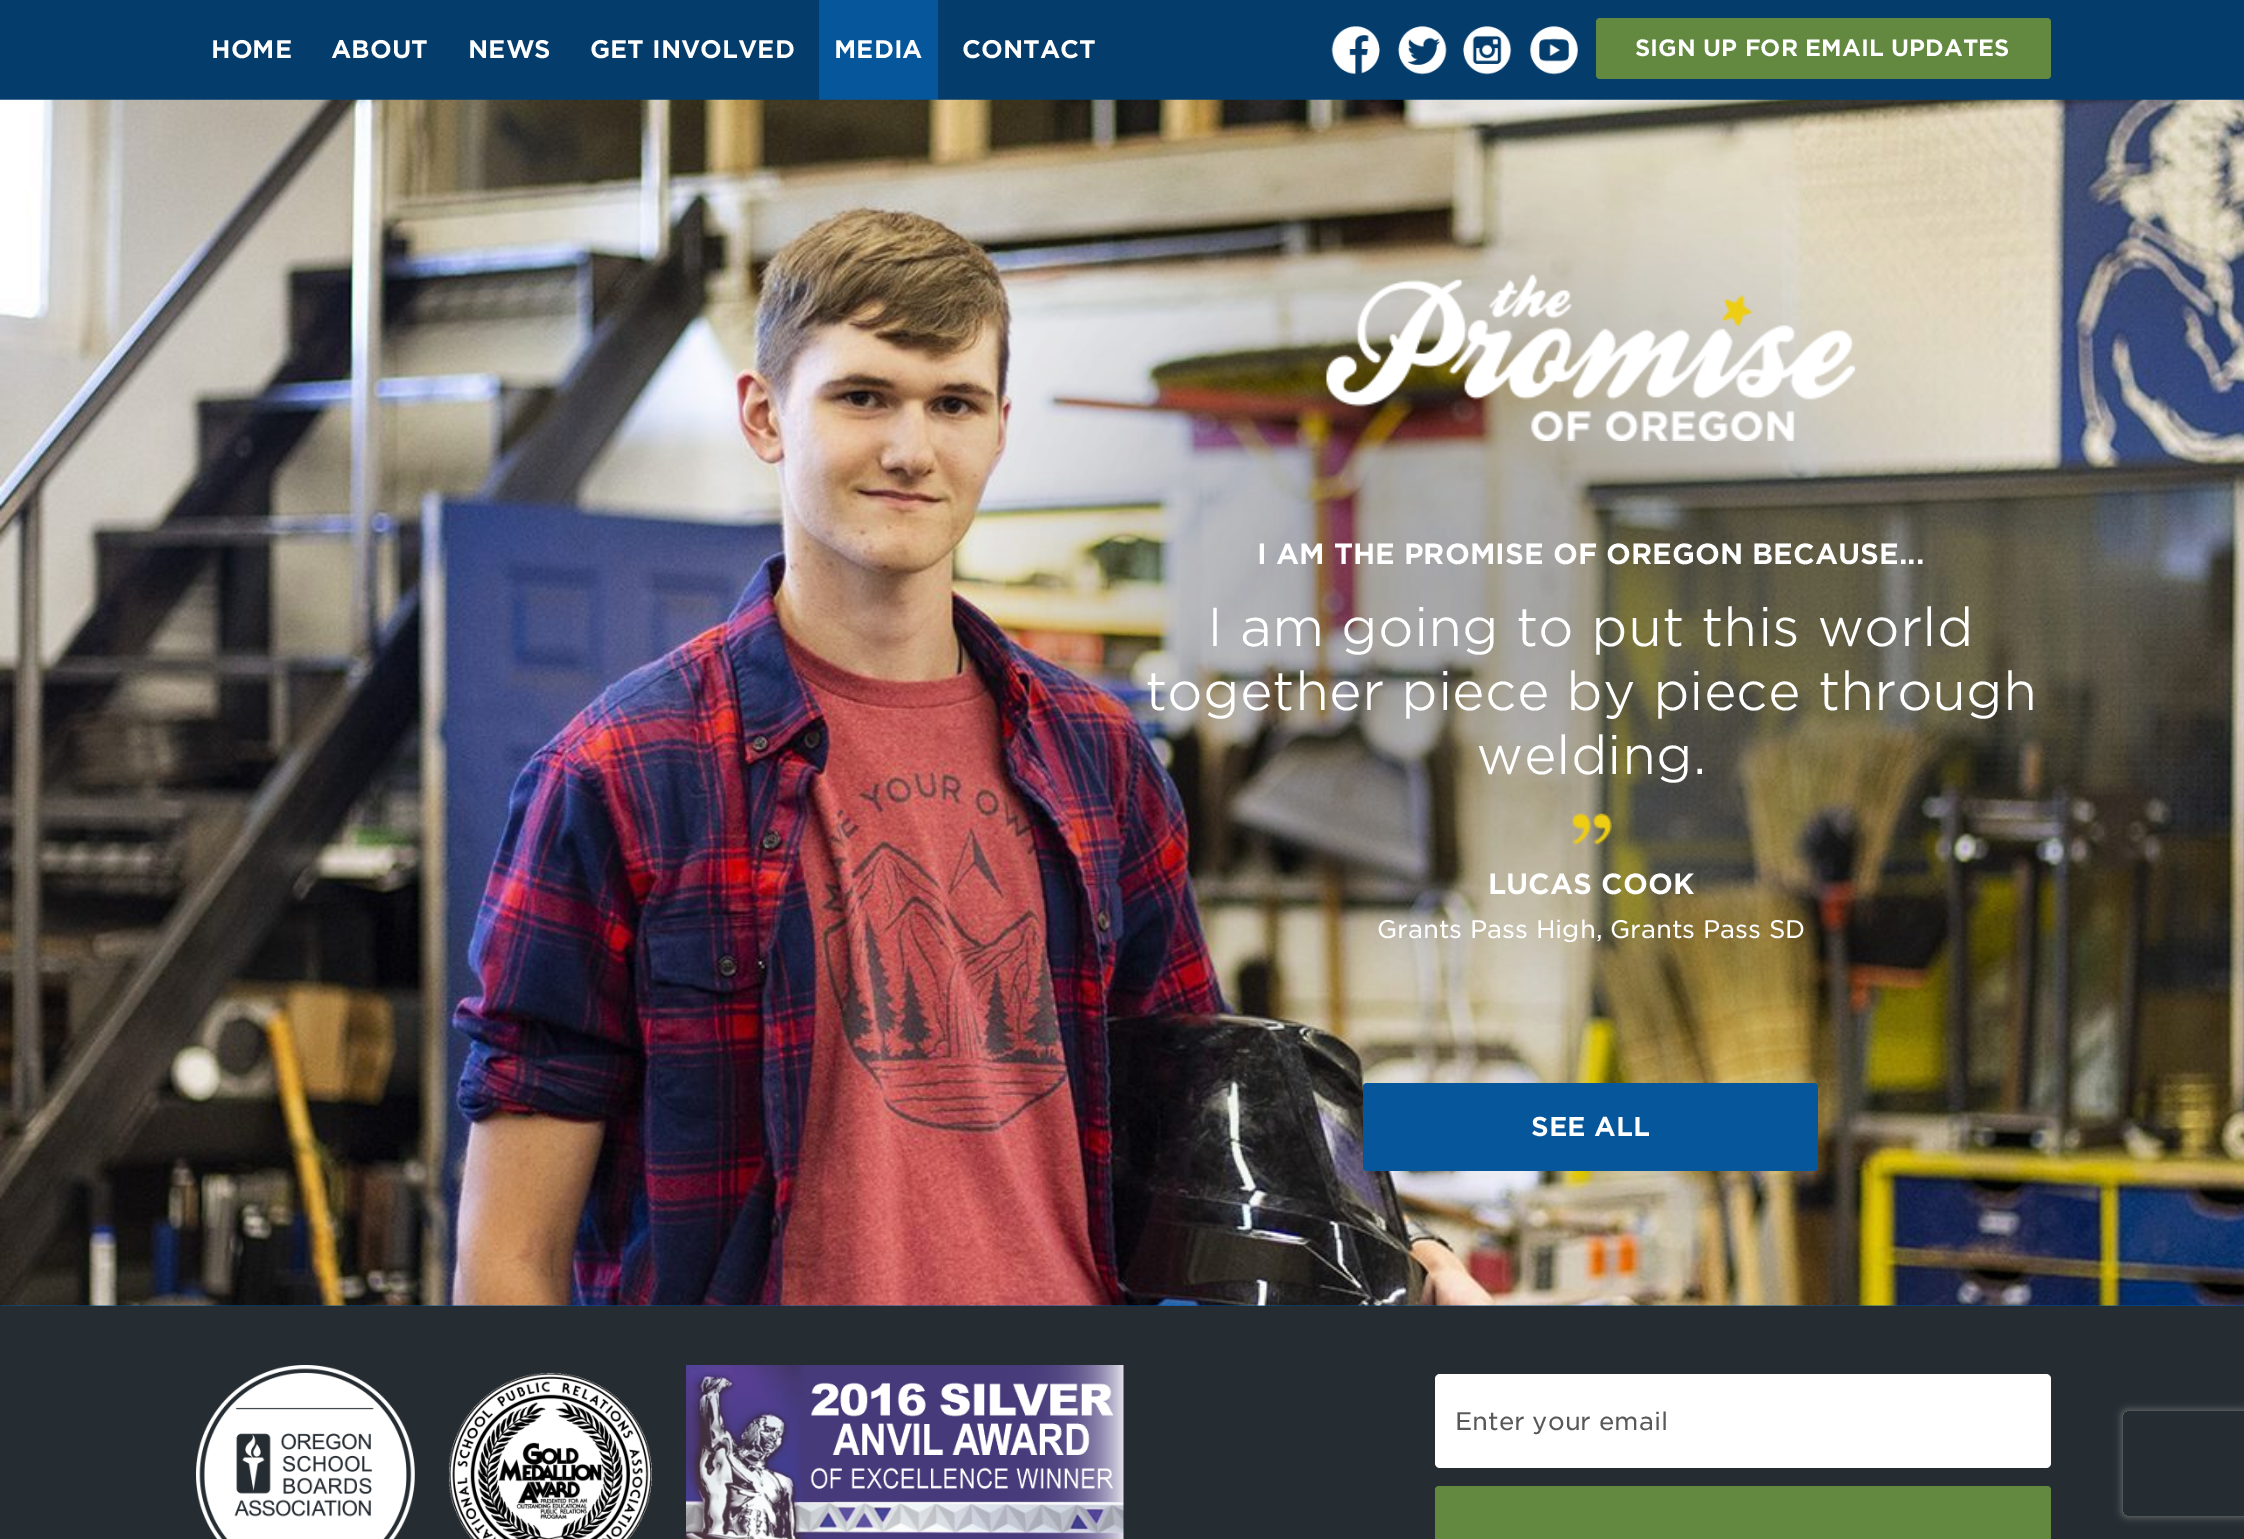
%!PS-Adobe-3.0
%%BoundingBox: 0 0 2244 1539
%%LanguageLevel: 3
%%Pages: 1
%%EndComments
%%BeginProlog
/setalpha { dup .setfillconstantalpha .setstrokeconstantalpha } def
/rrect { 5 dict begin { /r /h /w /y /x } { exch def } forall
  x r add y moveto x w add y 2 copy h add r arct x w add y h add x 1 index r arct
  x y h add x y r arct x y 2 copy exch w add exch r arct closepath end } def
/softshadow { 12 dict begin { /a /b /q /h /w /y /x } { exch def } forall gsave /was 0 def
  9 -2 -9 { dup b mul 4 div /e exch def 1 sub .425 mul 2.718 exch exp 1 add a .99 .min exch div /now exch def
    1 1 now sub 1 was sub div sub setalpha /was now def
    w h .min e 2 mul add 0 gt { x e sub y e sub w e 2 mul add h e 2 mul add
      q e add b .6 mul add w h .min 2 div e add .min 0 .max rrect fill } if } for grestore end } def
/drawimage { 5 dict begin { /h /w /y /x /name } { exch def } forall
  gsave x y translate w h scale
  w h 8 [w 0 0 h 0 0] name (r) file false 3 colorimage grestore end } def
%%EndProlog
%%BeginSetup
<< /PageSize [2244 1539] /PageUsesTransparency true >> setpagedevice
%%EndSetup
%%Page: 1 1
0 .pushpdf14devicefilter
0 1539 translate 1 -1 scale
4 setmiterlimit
0.016 0.235 0.424 setrgbcolor
0 0 2244 1539 rectfill
0.024 0.337 0.608 setrgbcolor
819 0 119 100 rectfill
(images/1.raw) 1331 26 49 49 drawimage
(images/2.raw) 1398 26 49 49 drawimage
(images/3.raw) 1463 26 49 49 drawimage
(images/4.raw) 1530 26 48 49 drawimage
0.388 0.537 0.255 setrgbcolor
1596 18 455 61 4 rrect fill
0.024 0.337 0.608 setrgbcolor
0 1305 2244 1 rectfill
(images/5.raw) 0 99 2244 1207 drawimage
(images/6.raw) 801 100 1366 1110 drawimage
(images/7.raw) 1326 274 529 167 drawimage
(images/8.raw) 1571 813 41 33 drawimage
1363 1083 455 88 4 rrect fill
0.145 0.173 0.196 setrgbcolor
0 1306 2244 233 rectfill
(images/9.raw) 196 1365 219 174 drawimage
(images/10.raw) 448 1372 204 167 drawimage
(images/11.raw) 686 1365 438 174 drawimage
1 setgray
1435 1374 616 94 5 rrect fill
0.388 0.537 0.255 setrgbcolor
1435 1486 616 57 4 rrect fill
gsave
newpath 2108 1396 moveto 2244 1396 lineto 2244 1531 lineto 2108 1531 lineto closepath 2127 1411 moveto 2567 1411 lineto 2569 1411 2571 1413 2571 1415 curveto 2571 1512 lineto 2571 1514 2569 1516 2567 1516 curveto 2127 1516 lineto 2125 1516 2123 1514 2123 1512 curveto 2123 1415 lineto 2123 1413 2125 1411 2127 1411 curveto closepath eoclip newpath
0.502 setgray
2123 1411 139 105 4 4.5 1 softshadow
grestore
/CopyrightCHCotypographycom-Regular [24.5 0 0 -24.5 0 0] selectfont
1 setgray
211 58 moveto (HOME) show
331 58 moveto (ABOUT) show
468 58 moveto (NEWS) show
590 58 moveto (GET INVOLVED) show
834 58 moveto (MEDIA) show
962 58 moveto (CONTACT) show
/CopyrightCHCotypographycom-Regular [22.75 0 0 -22.75 0 0] selectfont
1635 56 moveto (SIGN UP FOR EMAIL UPDATES) show
/CopyrightCHCotypographycom-Regular [28 0 0 -28 0 0] selectfont
1257 564 moveto (I AM THE PROMISE OF OREGON BECAUSE...) show
/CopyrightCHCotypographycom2-Light [52.5 0 0 -52.5 0 0] selectfont
1207 646 moveto (I am going to put this world) show
1145 710 moveto (together piece by piece through) show
1476 774 moveto (welding.) show
/CopyrightCHCotypographycom-Regular [28 0 0 -28 0 0] selectfont
1488 894 moveto (LUCAS COOK) show
/CopyrightCHCotypographycom-Light [24.5 0 0 -24.5 0 0] selectfont
1377 938 moveto (Grants Pass High, Grants Pass SD) show
/CopyrightCHCotypographycom-Regular [26.25 0 0 -26.25 0 0] selectfont
1531 1136 moveto (SEE ALL) show
/CopyrightCHCotypographycom-Light [24.5 0 0 -24.5 0 0] selectfont
0.345 setgray
1455 1430 moveto (Enter your email) show
.poppdf14devicefilter showpage
%%EOF
